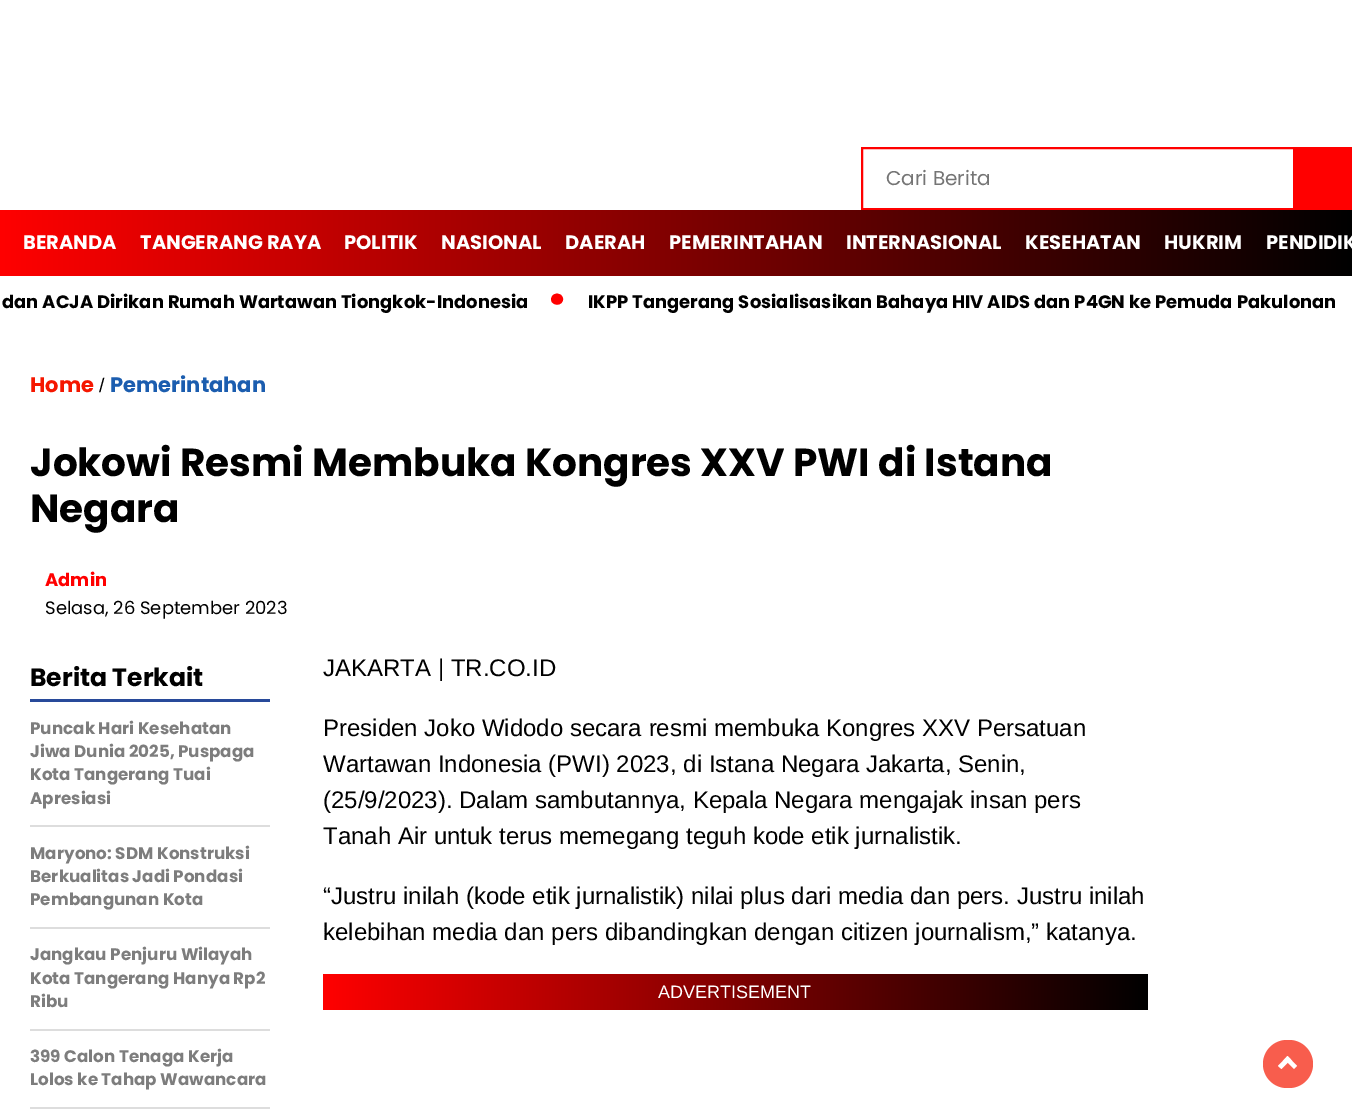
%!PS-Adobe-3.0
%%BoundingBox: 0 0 1352 1109
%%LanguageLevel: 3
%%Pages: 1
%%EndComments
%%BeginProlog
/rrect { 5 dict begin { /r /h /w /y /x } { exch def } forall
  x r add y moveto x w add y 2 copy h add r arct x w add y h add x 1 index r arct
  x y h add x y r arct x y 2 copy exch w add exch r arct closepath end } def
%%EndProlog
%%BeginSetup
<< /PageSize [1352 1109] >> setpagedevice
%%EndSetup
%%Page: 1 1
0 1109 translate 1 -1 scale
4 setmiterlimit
1 setgray
0 0 1352 1109 rectfill
1 0 0 setrgbcolor
2 setlinewidth
862 148 432 61 rectstroke
1295 147 57 63 rectfill
gsave newpath 0 210 moveto 1352 210 lineto 1352 276 lineto 0 276 lineto closepath clip newpath
<< /ShadingType 2 /ColorSpace /DeviceRGB /Coords [0 243 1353 243] /Extend [true true] /Function << /FunctionType 2 /Domain [0 1] /C0 [1 0 0] /C1 [0 0 0] /N 1 >> >> shfill grestore
0.157 0.29 0.604 setrgbcolor
30 699 240 3 rectfill
0.867 setgray
30 825 240 2 rectfill
30 927 240 2 rectfill
30 1029 240 2 rectfill
30 1107 240 2 rectfill
gsave newpath 323 974 moveto 1148 974 lineto 1148 1010 lineto 323 1010 lineto closepath clip newpath
<< /ShadingType 2 /ColorSpace /DeviceRGB /Coords [323 992 1148 992] /Extend [true true] /Function << /FunctionType 2 /Domain [0 1] /C0 [1 0 0] /C1 [0 0 0] /N 1 >> >> shfill grestore
0.973 0.365 0.302 setrgbcolor
1263 1040 50 48 24 rrect fill
1 setgray
newpath 1281.5 1069 moveto 1278 1066 lineto 1287.5 1056 lineto 1291 1059.5 lineto closepath fill
newpath 1294 1069 moveto 1284.5 1059.5 lineto 1287.5 1056 lineto 1297 1066 lineto closepath fill
/Poppins-Regular [20 0 0 -20 0 0] selectfont
0.459 setgray
886 185 moveto (Cari Berita) show
/Poppins-Bold [19.5 0 0 -19.5 0 0] selectfont
1 setgray
23 249 moveto (BERANDA) show
140 249 moveto (TANGERANG RAYA) show
344 249 moveto (POLITIK) show
441 249 moveto (NASIONAL) show
565 249 moveto (DAERAH) show
669 249 moveto (PEMERINTAHAN) show
846 249 moveto (INTERNASIONAL) show
1025 249 moveto (KESEHATAN) show
1164 249 moveto (HUKRIM) show
1266 249 moveto (PENDIDIK) show
/Poppins-Bold [18 0 0 -18 0 0] selectfont
0 setgray
2 308 moveto (dan ACJA Dirikan Rumah Wartawan Tiongkok-Indonesia) show
/Poppins-Bold [60 0 0 -60 0 0] selectfont
1 0 0 setrgbcolor
548 318 moveto (·) show
/Poppins-Bold [18 0 0 -18 0 0] selectfont
0 setgray
588 308 moveto (IKPP Tangerang Sosialisasikan Bahaya HIV AIDS dan P4GN ke Pemuda Pakulonan) show
/Poppins-Bold [21 0 0 -21 0 0] selectfont
0.961 0.09 0 setrgbcolor
30 392 moveto (Home) show
/LiberationSans-Regular [19.5 0 0 -19.5 0 0] selectfont
0 setgray
99 392 moveto (/) show
/Poppins-Bold [21 0 0 -21 0 0] selectfont
0.106 0.365 0.686 setrgbcolor
110 392 moveto (Pemerintahan) show
/Poppins-Bold [39 0 0 -39 0 0] selectfont
0 setgray
30 476 moveto (Jokowi Resmi Membuka Kongres XXV PWI di Istana) show
30 522 moveto (Negara) show
/Poppins-Bold [18 0 0 -18 0 0] selectfont
1 0 0 setrgbcolor
45 586 moveto (Admin) show
/Poppins-Regular [18 0 0 -18 0 0] selectfont
0 setgray
45 614 moveto (Selasa, 26 September 2023) show
/Poppins-Bold [25 0 0 -25 0 0] selectfont
30 686 moveto (Berita Terkait) show
/Poppins-Bold [16.75 0 0 -16.75 0 0] selectfont
0.49 setgray
30 734 moveto (Puncak Hari Kesehatan) show
30 757 moveto (Jiwa Dunia 2025, Puspaga) show
30 780 moveto (Kota Tangerang Tuai) show
30 804 moveto (Apresiasi) show
30 859 moveto (Maryono: SDM Konstruksi) show
30 882 moveto (Berkualitas Jadi Pondasi) show
30 905 moveto (Pembangunan Kota) show
30 960 moveto (Jangkau Penjuru Wilayah) show
30 984 moveto (Kota Tangerang Hanya Rp2) show
30 1007 moveto (Ribu) show
30 1062 moveto (399 Calon Tenaga Kerja) show
30 1085 moveto (Lolos ke Tahap Wawancara) show
/LiberationSans-Regular [24 0 0 -24 0 0] selectfont
0 setgray
323 676 moveto (JAKARTA | TR.CO.ID) show
323 736 moveto (Presiden Joko Widodo secara resmi membuka Kongres XXV Persatuan) show
323 772 moveto (Wartawan Indonesia \(PWI\) 2023, di Istana Negara Jakarta, Senin,) show
323 808 moveto (\(25/9/2023\). Dalam sambutannya, Kepala Negara mengajak insan pers) show
323 844 moveto (Tanah Air untuk terus memegang teguh kode etik jurnalistik.) show
323 904 moveto (“Justru inilah \(kode etik jurnalistik\) nilai plus dari media dan pers. Justru inilah) show
323 940 moveto (kelebihan media dan pers dibandingkan dengan citizen journalism,” katanya.) show
/LiberationSans-Regular [18 0 0 -18 0 0] selectfont
1 setgray
658 998 moveto (ADVERTISEMENT) show
showpage
%%EOF
